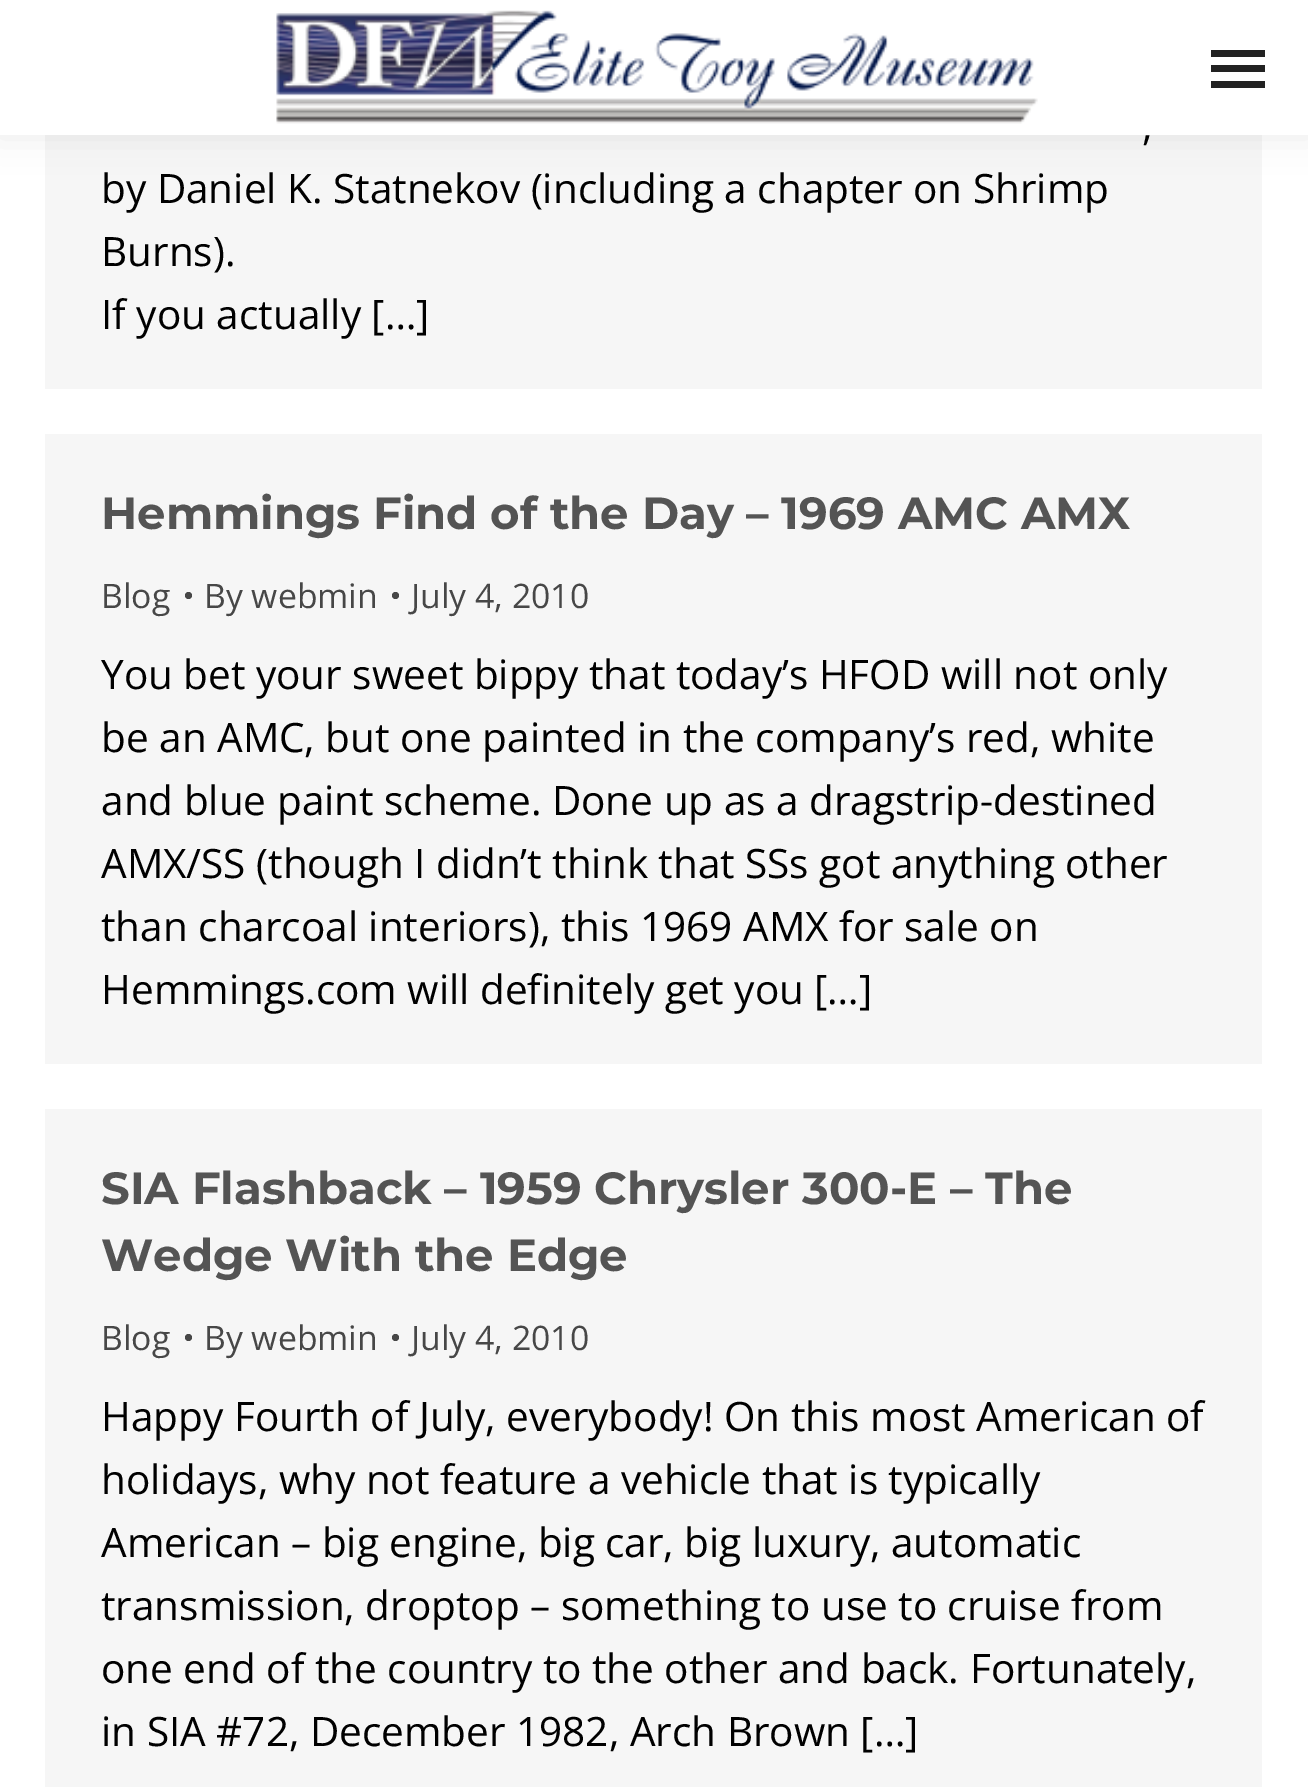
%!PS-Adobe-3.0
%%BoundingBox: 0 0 1308 1787
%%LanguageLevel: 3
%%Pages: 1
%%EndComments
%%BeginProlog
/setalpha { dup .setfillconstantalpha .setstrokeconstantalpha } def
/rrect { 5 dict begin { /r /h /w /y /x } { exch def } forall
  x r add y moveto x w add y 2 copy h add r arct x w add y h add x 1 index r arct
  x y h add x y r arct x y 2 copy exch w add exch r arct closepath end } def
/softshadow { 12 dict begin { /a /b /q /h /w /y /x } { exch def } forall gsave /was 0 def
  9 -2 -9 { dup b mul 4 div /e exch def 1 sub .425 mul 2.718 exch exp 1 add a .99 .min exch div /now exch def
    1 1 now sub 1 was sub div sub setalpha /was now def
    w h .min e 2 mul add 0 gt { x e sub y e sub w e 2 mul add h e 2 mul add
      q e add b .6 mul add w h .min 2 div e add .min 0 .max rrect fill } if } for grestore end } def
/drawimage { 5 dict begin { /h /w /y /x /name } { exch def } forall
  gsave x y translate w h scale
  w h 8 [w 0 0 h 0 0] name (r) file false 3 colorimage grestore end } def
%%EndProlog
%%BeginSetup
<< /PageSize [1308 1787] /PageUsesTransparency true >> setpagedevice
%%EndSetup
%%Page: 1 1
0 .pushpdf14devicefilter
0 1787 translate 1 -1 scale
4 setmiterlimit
1 setgray
0 0 1308 1787 rectfill
0.965 setgray
45 135 1217 254 rectfill
0 setgray
-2 -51 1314 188 0 17 0.07 softshadow
1 setgray
0 0 1308 135 rectfill
(images/1.raw) 276 10 762 114 drawimage
0.133 setgray
1211 50 54 7 rectfill
1211 65 54 7 rectfill
1211 81 54 7 rectfill
0.965 setgray
45 434 1217 630 rectfill
0.278 setgray
newpath 188.5 595.5 3.5 0 360 arc closepath fill
newpath 395.5 595.5 3.5 0 360 arc closepath fill
0.965 setgray
45 1109 1217 678 rectfill
0.278 setgray
newpath 188.5 1337.5 3.5 0 360 arc closepath fill
newpath 395.5 1337.5 3.5 0 360 arc closepath fill
/OpenSans-Regular [40.5 0 0 -40.5 0 0] selectfont
0 setgray
1142 140 moveto (,) show
101 203 moveto (by Daniel K. Statnekov \(including a chapter on Shrimp) show
101 266 moveto (Burns\).) show
101 329 moveto (If you actually […]) show
/Montserrat-Bold [45 0 0 -45 0 0] selectfont
0.329 setgray
101 529 moveto (Hemmings Find of the Day – 1969 AMC AMX) show
/OpenSans-Regular [33.75 0 0 -33.75 0 0] selectfont
0.278 setgray
101 608 moveto (Blog) show
204 608 moveto (By webmin) show
411 608 moveto (July 4, 2010) show
/OpenSans-Regular [40.5 0 0 -40.5 0 0] selectfont
0 setgray
101 689 moveto (You bet your sweet bippy that today’s HFOD will not only) show
101 752 moveto (be an AMC, but one painted in the company’s red, white) show
101 815 moveto (and blue paint scheme. Done up as a dragstrip-destined) show
101 878 moveto (AMX/SS \(though I didn’t think that SSs got anything other) show
101 941 moveto (than charcoal interiors\), this 1969 AMX for sale on) show
101 1004 moveto (Hemmings.com will definitely get you […]) show
/Montserrat-Bold [45 0 0 -45 0 0] selectfont
0.329 setgray
101 1204 moveto (SIA Flashback – 1959 Chrysler 300-E – The) show
101 1271 moveto (Wedge With the Edge) show
/OpenSans-Regular [33.75 0 0 -33.75 0 0] selectfont
0.278 setgray
101 1350 moveto (Blog) show
204 1350 moveto (By webmin) show
411 1350 moveto (July 4, 2010) show
/OpenSans-Regular [40.5 0 0 -40.5 0 0] selectfont
0 setgray
101 1431 moveto (Happy Fourth of July, everybody! On this most American of) show
101 1494 moveto (holidays, why not feature a vehicle that is typically) show
101 1557 moveto (American – big engine, big car, big luxury, automatic) show
101 1620 moveto (transmission, droptop – something to use to cruise from) show
101 1683 moveto (one end of the country to the other and back. Fortunately,) show
101 1746 moveto (in SIA #72, December 1982, Arch Brown […]) show
.poppdf14devicefilter showpage
%%EOF
